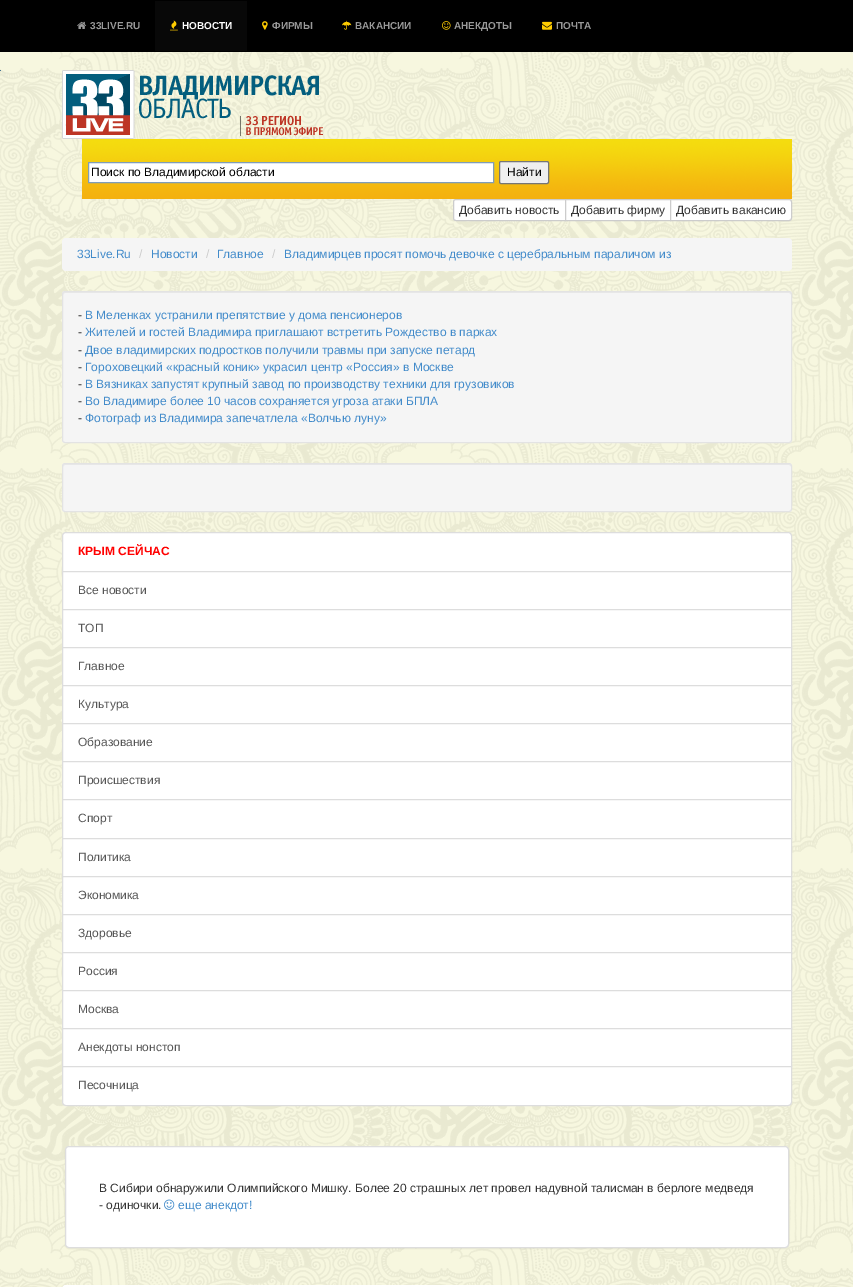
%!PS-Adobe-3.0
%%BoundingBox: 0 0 853 1287
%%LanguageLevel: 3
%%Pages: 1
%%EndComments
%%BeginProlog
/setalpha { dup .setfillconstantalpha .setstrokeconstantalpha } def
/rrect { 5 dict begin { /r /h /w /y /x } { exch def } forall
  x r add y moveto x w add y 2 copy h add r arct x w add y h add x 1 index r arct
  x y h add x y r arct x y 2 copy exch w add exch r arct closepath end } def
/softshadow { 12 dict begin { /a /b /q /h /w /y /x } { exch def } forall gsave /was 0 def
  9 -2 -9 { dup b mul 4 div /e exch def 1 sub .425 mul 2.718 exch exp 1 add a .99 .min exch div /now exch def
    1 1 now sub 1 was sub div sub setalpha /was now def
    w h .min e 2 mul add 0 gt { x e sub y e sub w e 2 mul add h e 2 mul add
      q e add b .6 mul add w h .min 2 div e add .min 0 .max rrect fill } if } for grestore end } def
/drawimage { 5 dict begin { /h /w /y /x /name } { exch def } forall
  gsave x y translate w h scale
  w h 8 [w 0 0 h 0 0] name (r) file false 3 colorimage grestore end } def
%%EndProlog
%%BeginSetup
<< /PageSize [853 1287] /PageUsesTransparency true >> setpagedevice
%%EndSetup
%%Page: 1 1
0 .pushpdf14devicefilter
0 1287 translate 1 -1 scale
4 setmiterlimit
1 setgray
0 0 853 1287 rectfill
(images/1.raw) 0 52 853 1235 drawimage
0 setgray
0 0 853 52 rectfill
(images/2.raw) 77 21 10 8 drawimage
0.031 setgray
155 1 92 50 rectfill
(images/3.raw) 170 20 8 11 drawimage
(images/4.raw) 262 21 6 9 drawimage
(images/5.raw) 342 20 10 10 drawimage
(images/6.raw) 442 21 9 9 drawimage
(images/7.raw) 542 21 10 9 drawimage
0.278 0.455 0.561 setrgbcolor
0 70 1 1 rectfill
(images/8.raw) 62 70 261 69 drawimage
(images/9.raw) 82 139 710 60 drawimage
1 setgray
newpath 88.5 162.5 moveto 493.5 162.5 lineto 493.5 182.5 lineto 88.5 182.5 lineto closepath gsave fill grestore
0.498 0.616 0.725 setrgbcolor
stroke
0.937 setgray
499.5 161.5 49 22 1.5 rrect gsave fill grestore
0.463 setgray
stroke
1 setgray
newpath 456 199.5 moveto 565.5 199.5 lineto 565.5 220.5 lineto 456 220.5 lineto 454.5 220.5 453.5 219.5 453.5 218 curveto 453.5 202 lineto 453.5 200.5 454.5 199.5 456 199.5 curveto closepath gsave fill grestore
0.8 setgray
stroke
1 setgray
newpath 565.5 199.5 moveto 670.5 199.5 lineto 670.5 220.5 lineto 565.5 220.5 lineto closepath gsave fill grestore
0.8 setgray
stroke
1 setgray
newpath 670.5 199.5 moveto 789 199.5 lineto 790.5 199.5 791.5 200.5 791.5 202 curveto 791.5 218 lineto 791.5 219.5 790.5 220.5 789 220.5 curveto 670.5 220.5 lineto closepath gsave fill grestore
0.8 setgray
stroke
0.961 setgray
62 238 730 33 4 rrect fill
62 291 730 152 3 rrect fill
0.914 setgray
newpath 65 293 moveto 789 293 lineto 790 293 791 294 791 295 curveto 791 294 791 292 789 292 curveto 65 292 lineto 63 292 63 294 63 295 curveto 63 294 64 293 65 293 curveto closepath fill
0.89 setgray
62.5 291.5 729 151 2.5 rrect stroke
0.961 setgray
62 463 730 49 3 rrect fill
0.914 setgray
newpath 65 465 moveto 789 465 lineto 790 465 791 466 791 467 curveto 791 466 791 464 789 464 curveto 65 464 lineto 63 464 63 466 63 467 curveto 63 466 64 465 65 465 curveto closepath fill
0.89 setgray
62.5 463.5 729 48 2.5 rrect stroke
1 setgray
newpath 66 532.5 moveto 788 532.5 lineto 790 532.5 791.5 534 791.5 536 curveto 791.5 571.5 lineto 62.5 571.5 lineto 62.5 536 lineto 62.5 534 64 532.5 66 532.5 curveto closepath gsave fill grestore
0.867 setgray
stroke
1 setgray
newpath 62.5 571.5 moveto 791.5 571.5 lineto 791.5 609.5 lineto 62.5 609.5 lineto closepath gsave fill grestore
0.867 setgray
stroke
1 setgray
newpath 62.5 609.5 moveto 791.5 609.5 lineto 791.5 647.5 lineto 62.5 647.5 lineto closepath gsave fill grestore
0.867 setgray
stroke
1 setgray
newpath 62.5 647.5 moveto 791.5 647.5 lineto 791.5 685.5 lineto 62.5 685.5 lineto closepath gsave fill grestore
0.867 setgray
stroke
1 setgray
newpath 62.5 685.5 moveto 791.5 685.5 lineto 791.5 723.5 lineto 62.5 723.5 lineto closepath gsave fill grestore
0.867 setgray
stroke
1 setgray
newpath 62.5 723.5 moveto 791.5 723.5 lineto 791.5 761.5 lineto 62.5 761.5 lineto closepath gsave fill grestore
0.867 setgray
stroke
1 setgray
newpath 62.5 761.5 moveto 791.5 761.5 lineto 791.5 799.5 lineto 62.5 799.5 lineto closepath gsave fill grestore
0.867 setgray
stroke
1 setgray
newpath 62.5 799.5 moveto 791.5 799.5 lineto 791.5 838.5 lineto 62.5 838.5 lineto closepath gsave fill grestore
0.867 setgray
stroke
1 setgray
newpath 62.5 838.5 moveto 791.5 838.5 lineto 791.5 876.5 lineto 62.5 876.5 lineto closepath gsave fill grestore
0.867 setgray
stroke
1 setgray
newpath 62.5 876.5 moveto 791.5 876.5 lineto 791.5 914.5 lineto 62.5 914.5 lineto closepath gsave fill grestore
0.867 setgray
stroke
1 setgray
newpath 62.5 914.5 moveto 791.5 914.5 lineto 791.5 952.5 lineto 62.5 952.5 lineto closepath gsave fill grestore
0.867 setgray
stroke
1 setgray
newpath 62.5 952.5 moveto 791.5 952.5 lineto 791.5 990.5 lineto 62.5 990.5 lineto closepath gsave fill grestore
0.867 setgray
stroke
1 setgray
newpath 62.5 990.5 moveto 791.5 990.5 lineto 791.5 1028.5 lineto 62.5 1028.5 lineto closepath gsave fill grestore
0.867 setgray
stroke
1 setgray
newpath 62.5 1028.5 moveto 791.5 1028.5 lineto 791.5 1066.5 lineto 62.5 1066.5 lineto closepath gsave fill grestore
0.867 setgray
stroke
1 setgray
newpath 62.5 1066.5 moveto 791.5 1066.5 lineto 791.5 1102 lineto 791.5 1104 790 1105.5 788 1105.5 curveto 66 1105.5 lineto 64 1105.5 62.5 1104 62.5 1102 curveto closepath gsave fill grestore
0.867 setgray
stroke
0 setgray
65 1147 724 102 4 0.5 0.05 softshadow
1 setgray
65.5 1146.5 723 101 3.5 rrect gsave fill grestore
0.867 setgray
stroke
(images/10.raw) 164 1199 11 11 drawimage
1 setgray
62 1285 730 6 4 rrect fill
/LiberationSans-Bold [10 0 0 -10 0 0] selectfont
0.6 setgray
90 29 moveto (33LIVE.RU) show
1 setgray
182 29 moveto (НОВОСТИ) show
0.6 setgray
272 29 moveto (ФИРМЫ) show
355 29 moveto (ВАКАНСИИ) show
454 29 moveto (АНЕКДОТЫ) show
556 29 moveto (ПОЧТА) show
/LiberationSans-Regular [12 0 0 -12 0 0] selectfont
0 setgray
91 176 moveto (Поиск по Владимирской области) show
507 176 moveto (Найти) show
0.2 setgray
459 214 moveto (Добавить новость) show
571 214 moveto (Добавить фирму) show
676 214 moveto (Добавить вакансию) show
0.259 0.545 0.792 setrgbcolor
77 258 moveto (33Live.Ru) show
0.8 setgray
139 258 moveto (/) show
0.259 0.545 0.792 setrgbcolor
151 258 moveto (Новости) show
0.8 setgray
206 258 moveto (/) show
0.259 0.545 0.792 setrgbcolor
217 258 moveto (Главное) show
0.8 setgray
272 258 moveto (/) show
0.259 0.545 0.792 setrgbcolor
284 258 moveto (Владимирцев просят помочь девочке с церебральным параличом из) show
0.2 setgray
78 319 moveto (-) show
0.259 0.545 0.792 setrgbcolor
85 319 moveto (В Меленках устранили препятствие у дома пенсионеров) show
0.2 setgray
78 336 moveto (-) show
0.259 0.545 0.792 setrgbcolor
85 336 moveto (Жителей и гостей Владимира приглашают встретить Рождество в парках) show
0.2 setgray
78 354 moveto (-) show
0.259 0.545 0.792 setrgbcolor
85 354 moveto (Двое владимирских подростков получили травмы при запуске петард) show
0.2 setgray
78 371 moveto (-) show
0.259 0.545 0.792 setrgbcolor
85 371 moveto (Гороховецкий «красный коник» украсил центр «Россия» в Москве) show
0.2 setgray
78 388 moveto (-) show
0.259 0.545 0.792 setrgbcolor
85 388 moveto (В Вязниках запустят крупный завод по производству техники для грузовиков) show
0.2 setgray
78 405 moveto (-) show
0.259 0.545 0.792 setrgbcolor
85 405 moveto (Во Владимире более 10 часов сохраняется угроза атаки БПЛА) show
0.2 setgray
78 422 moveto (-) show
0.259 0.545 0.792 setrgbcolor
85 422 moveto (Фотограф из Владимира запечатлела «Волчью луну») show
/LiberationSans-Bold [12 0 0 -12 0 0] selectfont
1 0 0 setrgbcolor
78 555 moveto (КРЫМ СЕЙЧАС) show
/LiberationSans-Regular [12 0 0 -12 0 0] selectfont
0.333 setgray
78 594 moveto (Все новости) show
78 632 moveto (ТОП) show
78 670 moveto (Главное) show
78 708 moveto (Культура) show
78 746 moveto (Образование) show
78 784 moveto (Происшествия) show
78 822 moveto (Спорт) show
78 861 moveto (Политика) show
78 899 moveto (Экономика) show
78 937 moveto (Здоровье) show
78 975 moveto (Россия) show
78 1013 moveto (Москва) show
78 1051 moveto (Анекдоты нонстоп) show
78 1089 moveto (Песочница) show
0.2 setgray
99 1192 moveto (В Сибири обнаружили Олимпийского Мишку. Более 20 страшных лет провел надувной талисман в берлоге медведя) show
99 1209 moveto (- одиночки.) show
0.259 0.545 0.792 setrgbcolor
178 1209 moveto (еще анекдот!) show
.poppdf14devicefilter showpage
%%EOF
